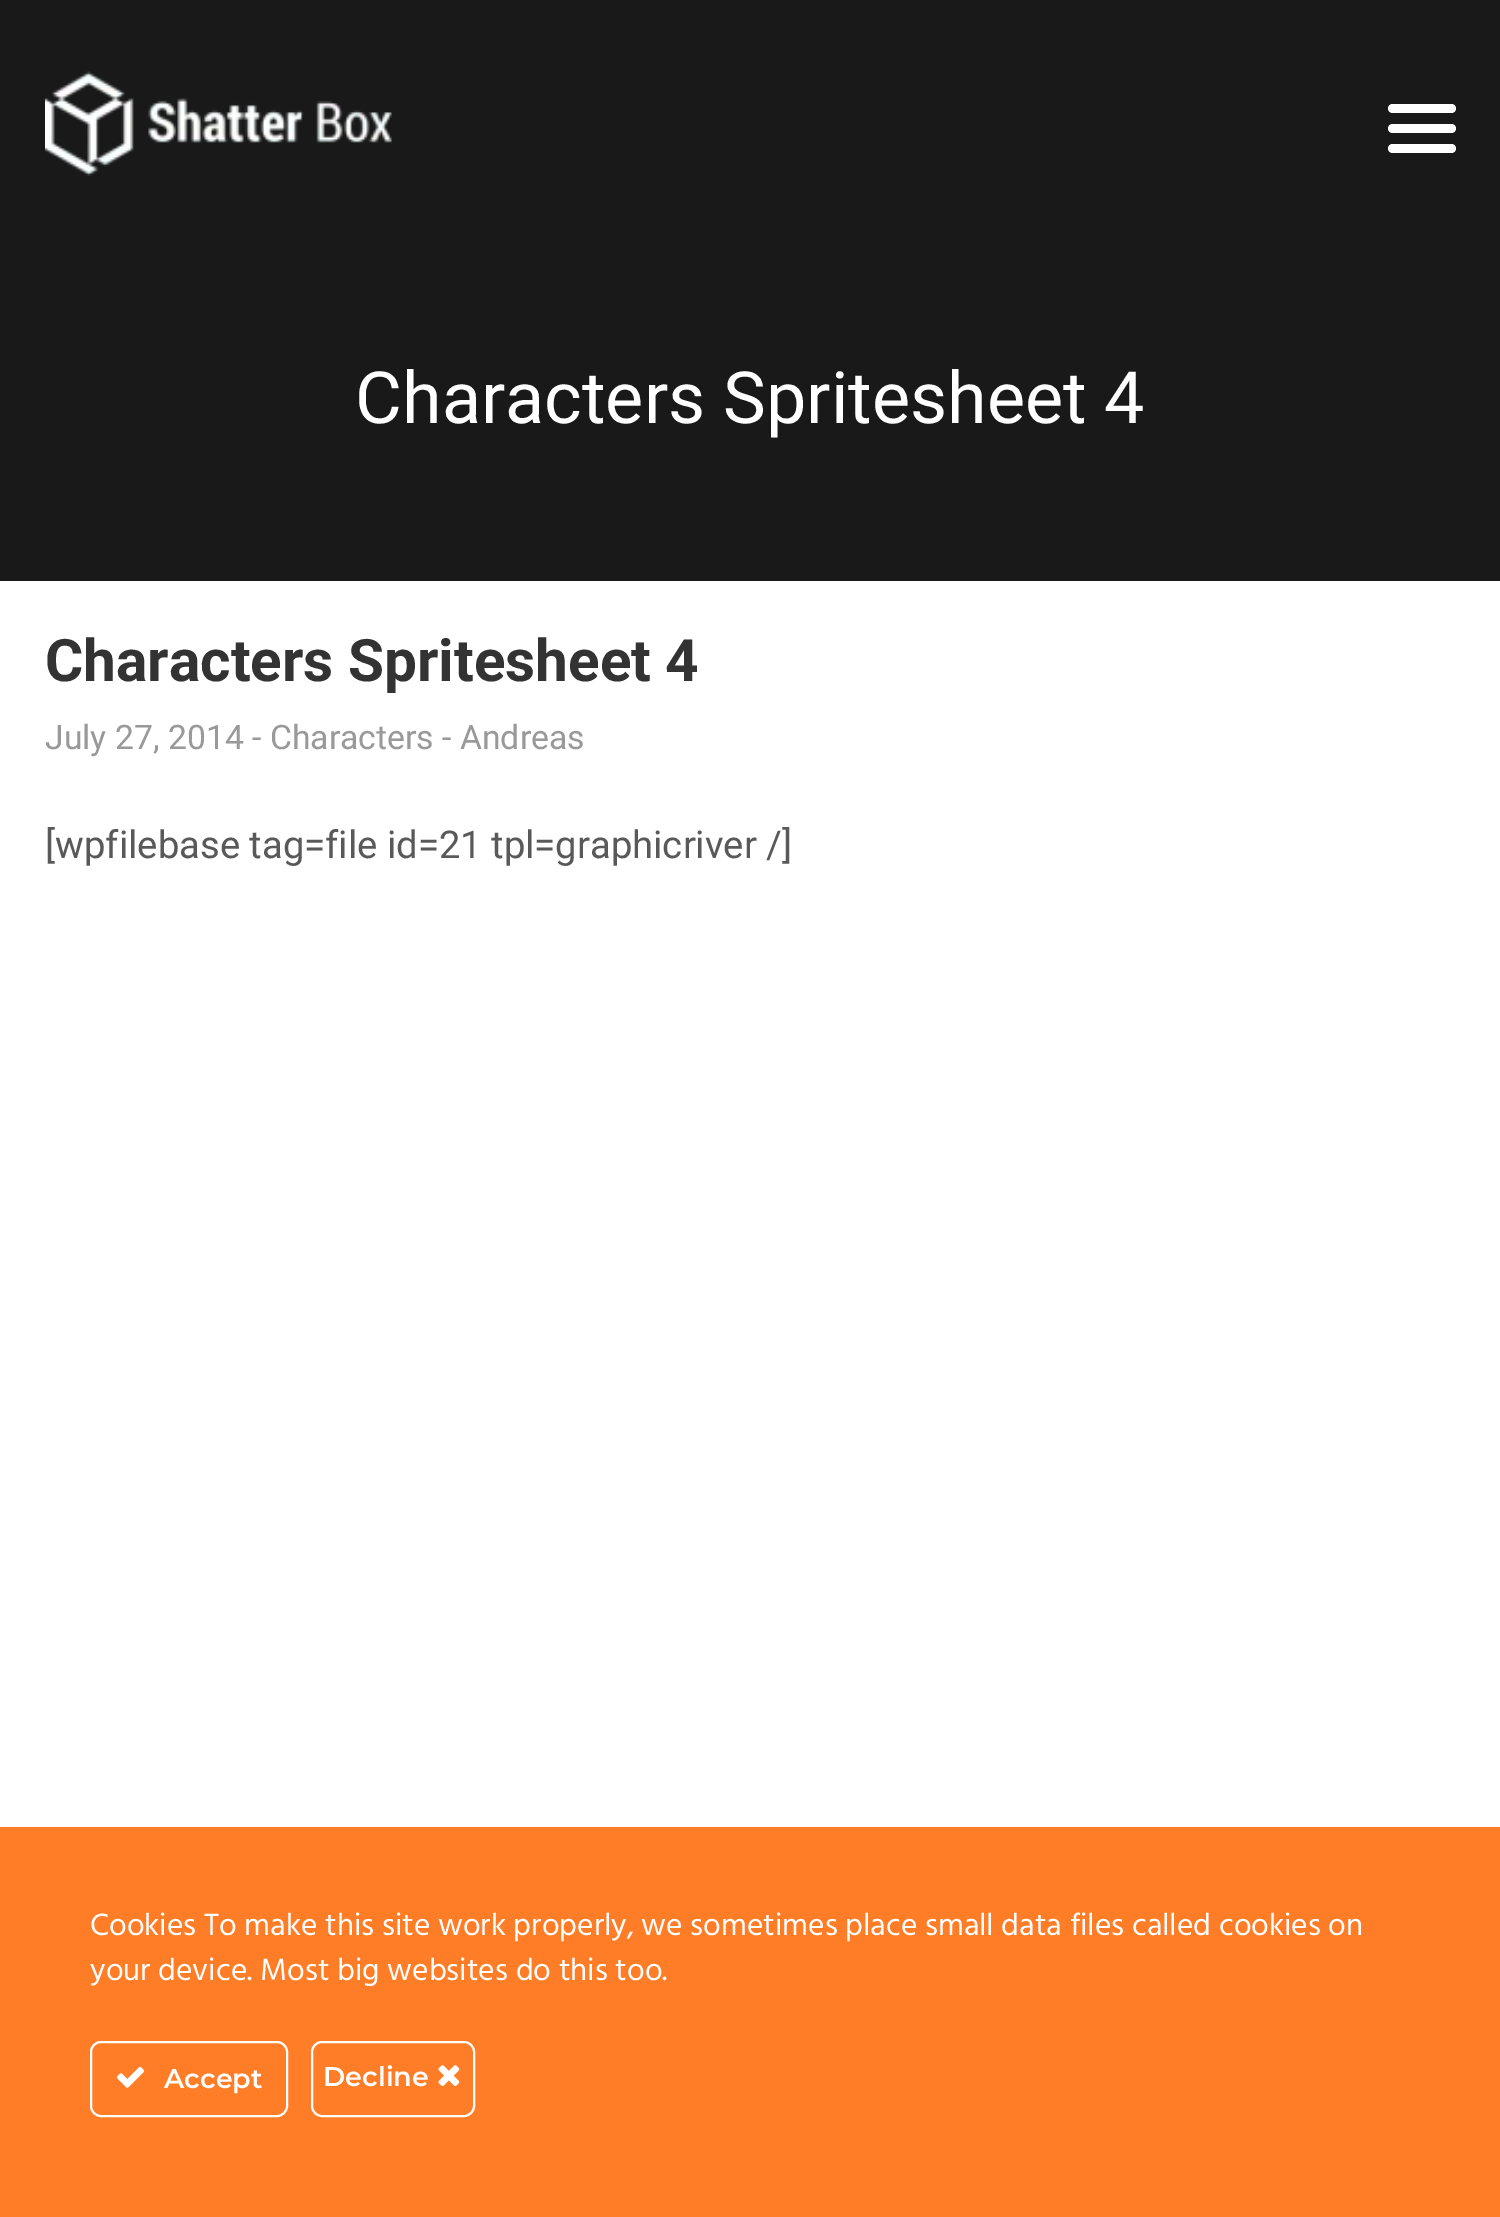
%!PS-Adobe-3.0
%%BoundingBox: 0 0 1500 2217
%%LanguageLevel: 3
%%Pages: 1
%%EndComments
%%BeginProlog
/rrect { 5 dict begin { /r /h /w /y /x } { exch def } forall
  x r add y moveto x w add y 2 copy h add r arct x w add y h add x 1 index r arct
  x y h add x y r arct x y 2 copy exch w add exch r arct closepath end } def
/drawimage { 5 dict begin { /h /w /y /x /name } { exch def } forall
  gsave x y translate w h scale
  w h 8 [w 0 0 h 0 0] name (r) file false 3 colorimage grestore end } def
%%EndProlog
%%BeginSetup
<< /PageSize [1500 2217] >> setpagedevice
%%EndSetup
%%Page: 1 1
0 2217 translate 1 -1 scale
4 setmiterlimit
1 setgray
0 0 1500 2217 rectfill
0.098 setgray
0 0 1500 581 rectfill
(images/1.raw) 45 71 347 105 drawimage
1 setgray
1388 124 68 9 4.5 rrect fill
1388 104 68 9 4.5 rrect fill
1388 144 68 9 4.5 rrect fill
1 0.49 0.153 setrgbcolor
0 1827 1500 390 rectfill
1 setgray
2 setlinewidth
91 2042 196 74 10 rrect stroke
(images/2.raw) 116 2066 29 22 drawimage
312 2042 162 74 10 rrect stroke
(images/3.raw) 438 2065 22 22 drawimage
/Roboto-Regular [72 0 0 -72 0 0] selectfont
355 423 moveto (Characters Spritesheet 4) show
/Roboto-Bold [58.5 0 0 -58.5 0 0] selectfont
0.2 setgray
45 681 moveto (Characters Spritesheet 4) show
/Roboto-Regular [33.75 0 0 -33.75 0 0] selectfont
0.6 setgray
45 749 moveto (July 27, 2014 - Characters - Andreas) show
/Roboto-Regular [38.25 0 0 -38.25 0 0] selectfont
0.349 setgray
45 858 moveto ([wpfilebase tag=file id=21 tpl=graphicriver /]) show
/Hind-Regular [31.5 0 0 -31.5 0 0] selectfont
1 setgray
90 1935 moveto (Cookies To make this site work properly, we sometimes place small data files called cookies on) show
90 1980 moveto (your device. Most big websites do this too.) show
/Montserrat-SemiBold [27 0 0 -27 0 0] selectfont
164 2088 moveto (Accept) show
323 2086 moveto (Decline) show
showpage
%%EOF
